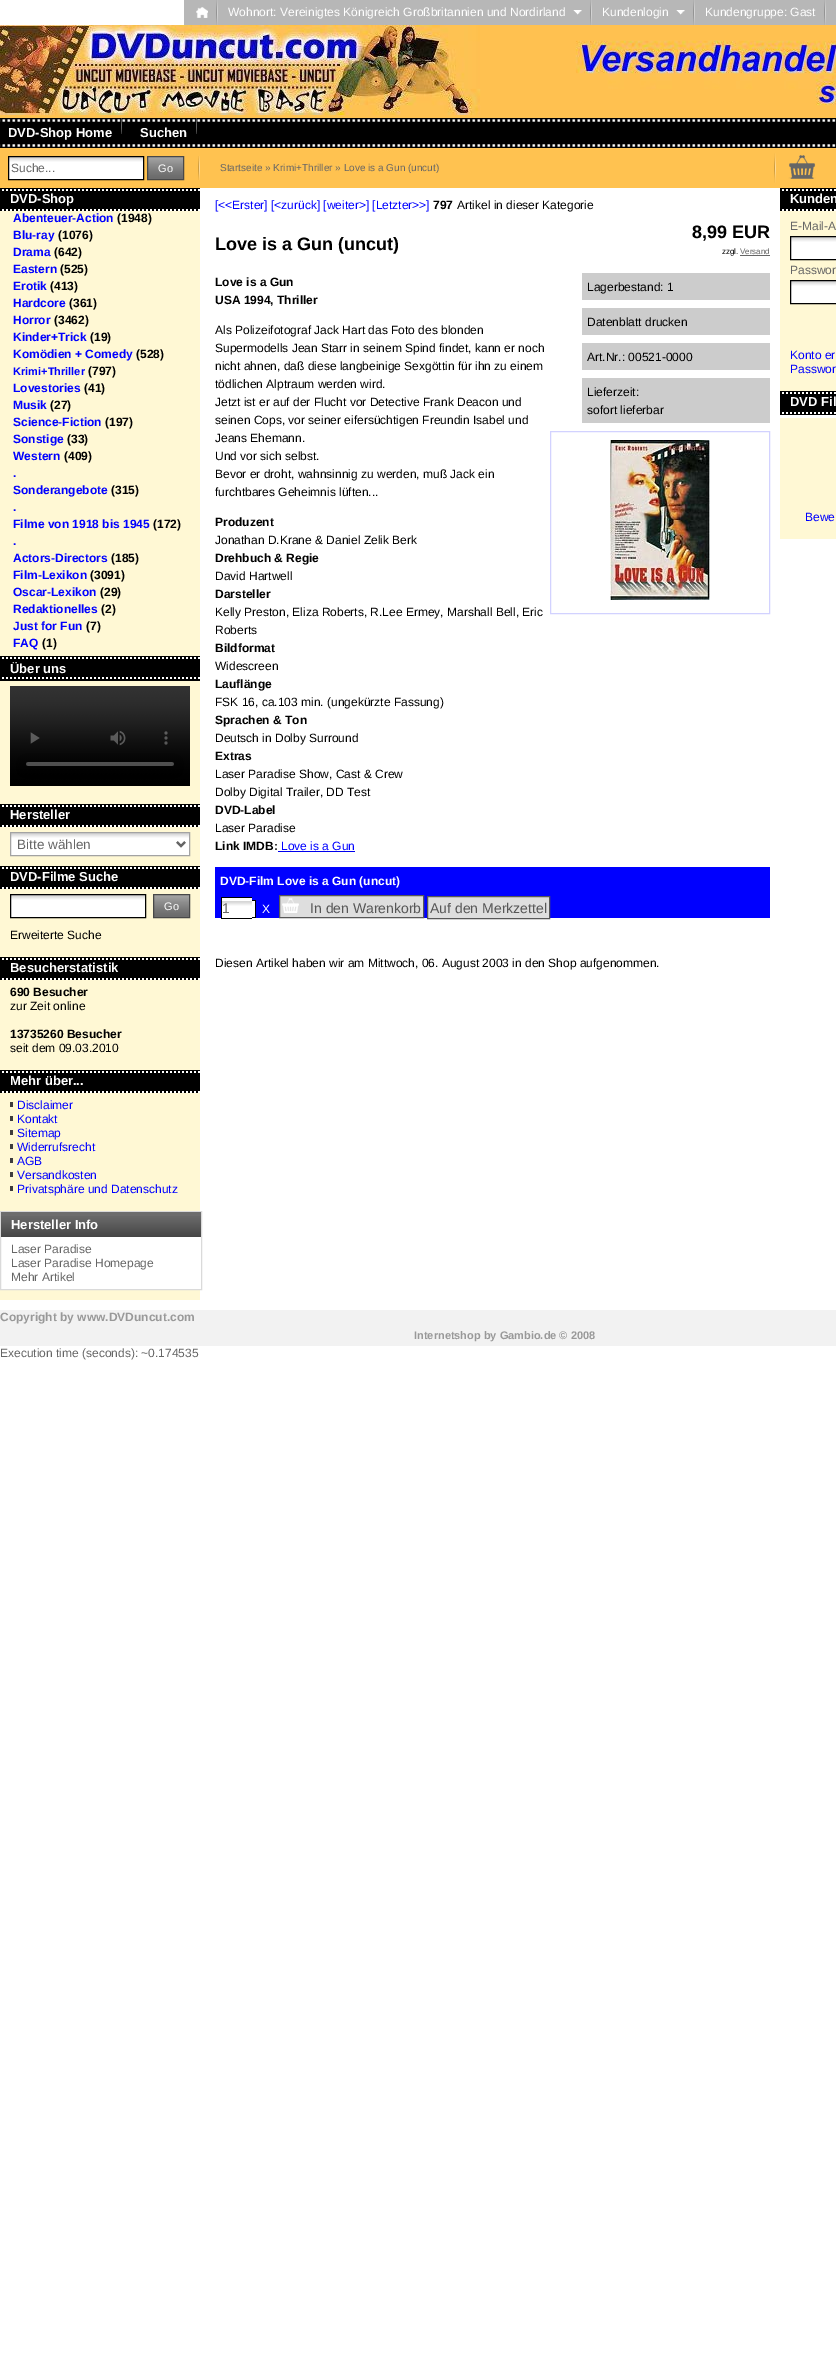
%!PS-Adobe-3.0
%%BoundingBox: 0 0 836 2369
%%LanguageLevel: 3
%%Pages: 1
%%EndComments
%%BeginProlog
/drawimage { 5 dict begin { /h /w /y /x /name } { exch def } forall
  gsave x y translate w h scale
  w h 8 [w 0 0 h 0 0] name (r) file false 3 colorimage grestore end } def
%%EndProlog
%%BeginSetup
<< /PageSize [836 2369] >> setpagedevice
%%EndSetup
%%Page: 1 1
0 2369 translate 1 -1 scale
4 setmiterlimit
1 setgray
0 0 836 2369 rectfill
0.718 setgray
184 0 652 25 rectfill
(images/1.raw) 216 0 2 25 drawimage
(images/2.raw) 196 7 12 11 drawimage
(images/1.raw) 590 0 2 25 drawimage
(images/3.raw) 573 10 9 5 drawimage
(images/1.raw) 693 0 2 25 drawimage
(images/3.raw) 676 10 9 5 drawimage
(images/1.raw) 824 0 2 25 drawimage
1 0.761 0.314 setrgbcolor
0 115 836 3 rectfill
(images/4.raw) 0 25 836 90 drawimage
(images/5.raw) 0 118 836 30 drawimage
(images/6.raw) 121 118 1 16 drawimage
(images/6.raw) 196 118 1 16 drawimage
0 148 836 40 rectfill
(images/7.raw) 198 156 2 24 drawimage
1 setgray
9 157 134 22 rectfill
(images/8.raw) 9 157 134 5 drawimage
0 setgray
8.5 156.5 135 23 rectstroke
0.784 setgray
148 157 35 22 rectfill
(images/9.raw) 148 157 35 22 drawimage
0.282 setgray
147.5 156.5 36 23 rectstroke
(images/10.raw) 774 153 2 30 drawimage
(images/11.raw) 788 155 28 24 drawimage
1 0.973 0.831 setrgbcolor
0 211 200 1089 rectfill
(images/12.raw) 0 188 200 23 drawimage
(images/13.raw) 0 656 200 25 drawimage
(images/14.raw) 10 686 180 100 drawimage
(images/12.raw) 0 804 200 23 drawimage
1 setgray
11 833 178 22 rectfill
(images/15.raw) 11 833 178 15 drawimage
0.639 setgray
10.5 832.5 179 23 rectstroke
0.4 setgray
2 setlinewidth
newpath 177 842 moveto 181 846 lineto 185 842 lineto stroke
(images/12.raw) 0 866 200 23 drawimage
1 setgray
11 895 134 22 rectfill
(images/8.raw) 11 895 134 5 drawimage
0 setgray
1 setlinewidth
10.5 894.5 135 23 rectstroke
0.784 setgray
154 895 35 22 rectfill
(images/9.raw) 154 895 35 22 drawimage
0.282 setgray
153.5 894.5 36 23 rectstroke
(images/12.raw) 0 957 200 23 drawimage
(images/12.raw) 0 1070 200 23 drawimage
0.243 0.235 0.239 setrgbcolor
10 1102 3 5 rectfill
10 1116 3 5 rectfill
10 1130 3 5 rectfill
10 1144 3 5 rectfill
10 1158 3 5 rectfill
10 1172 3 5 rectfill
10 1186 3 5 rectfill
1 setgray
1 1237 199 52 rectfill
0.855 setgray
0.5 1211.5 201 78 rectstroke
0.427 setgray
1 1212 200 25 rectfill
(images/16.raw) 1 1216 200 21 drawimage
0.4 setgray
740 255 30 1 rectfill
0 0 0.933 setrgbcolor
278 851 77 1 rectfill
0.8 setgray
582 273 188 27 rectfill
582 308 188 27 rectfill
582 343 188 27 rectfill
582 378 188 45 rectfill
0.824 0.824 1 setrgbcolor
550.5 431.5 219 182 rectstroke
(images/17.raw) 610 440 100 160 drawimage
0 0 1 setrgbcolor
215 867 555 51 rectfill
1 setgray
222 898 30 20 rectfill
(images/18.raw) 222 901 30 5 drawimage
0 setgray
221 897 31 1 rectfill
221 918 31 1 rectfill
221 897 1 22 rectfill
1 setgray
252 900 3 18 rectfill
0 setgray
252 900 4 1 rectfill
255 900 1 18 rectfill
252 917 4 1 rectfill
0.871 setgray
newpath 279.5 895.5 moveto 423.5 895.5 lineto 423.5 917.5 lineto 279.5 917.5 lineto closepath gsave fill grestore
0.341 setgray
stroke
(images/19.raw) 282 898 17 15 drawimage
0.871 setgray
newpath 427.5 896.5 moveto 549.5 896.5 lineto 549.5 918.5 lineto 427.5 918.5 lineto closepath gsave fill grestore
0.341 setgray
stroke
1 0.973 0.831 setrgbcolor
780 211 56 328 rectfill
(images/20.raw) 780 188 56 23 drawimage
1 setgray
791 237 45 22 rectfill
(images/21.raw) 791 237 45 5 drawimage
0 setgray
790.5 236.5 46 23 rectstroke
1 setgray
791 281 45 22 rectfill
(images/21.raw) 791 281 45 5 drawimage
0 setgray
790.5 280.5 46 23 rectstroke
1 setgray
780 415 56 3 rectfill
(images/22.raw) 780 391 56 24 drawimage
0.949 setgray
0 1310 836 36 rectfill
/LiberationSans-Regular [12 0 0 -12 0 0] selectfont
1 setgray
228 16 moveto (Wohnort: Vereinigtes Königreich Großbritannien und Nordirland) show
602 16 moveto (Kundenlogin) show
705 16 moveto (Kundengruppe: Gast) show
/LiberationSans-Bold [13 0 0 -13 0 0] selectfont
8 137 moveto (DVD-Shop Home) show
140 137 moveto (Suchen) show
/LiberationSans-Regular [12 0 0 -12 0 0] selectfont
0.4 setgray
11 172 moveto (Suche...) show
/LiberationSans-Regular [11 0 0 -11 0 0] selectfont
1 setgray
158 172 moveto (Go) show
/LiberationSans-Regular [10 0 0 -10 0 0] selectfont
0.4 setgray
220 171 moveto (Startseite » Krimi+Thriller » Love is a Gun \(uncut\)) show
/LiberationSans-Bold [13 0 0 -13 0 0] selectfont
1 setgray
10 203 moveto (DVD-Shop) show
/LiberationSans-Bold [12 0 0 -12 0 0] selectfont
0 0 1 setrgbcolor
13 222 moveto (Abenteuer-Action) show
0 setgray
117 222 moveto (\(1948\)) show
0 0 1 setrgbcolor
13 239 moveto (Blu-ray) show
0 setgray
58 239 moveto (\(1076\)) show
0 0 1 setrgbcolor
13 256 moveto (Drama) show
0 setgray
54 256 moveto (\(642\)) show
0 0 1 setrgbcolor
13 273 moveto (Eastern) show
0 setgray
60 273 moveto (\(525\)) show
0 0 1 setrgbcolor
13 290 moveto (Erotik) show
0 setgray
50 290 moveto (\(413\)) show
0 0 1 setrgbcolor
13 307 moveto (Hardcore) show
0 setgray
69 307 moveto (\(361\)) show
0 0 1 setrgbcolor
13 324 moveto (Horror) show
0 setgray
54 324 moveto (\(3462\)) show
0 0 1 setrgbcolor
13 341 moveto (Kinder+Trick) show
0 setgray
90 341 moveto (\(19\)) show
0 0 1 setrgbcolor
13 358 moveto (Komödien + Comedy) show
0 setgray
136 358 moveto (\(528\)) show
/LiberationSans-Bold [11 0 0 -11 0 0] selectfont
0 0 1 setrgbcolor
13 375 moveto (Krimi+Thriller) show
/LiberationSans-Bold [12 0 0 -12 0 0] selectfont
0 setgray
88 375 moveto (\(797\)) show
0 0 1 setrgbcolor
13 392 moveto (Lovestories) show
0 setgray
84 392 moveto (\(41\)) show
0 0 1 setrgbcolor
13 409 moveto (Musik) show
0 setgray
50 409 moveto (\(27\)) show
0 0 1 setrgbcolor
13 426 moveto (Science-Fiction) show
0 setgray
105 426 moveto (\(197\)) show
0 0 1 setrgbcolor
13 443 moveto (Sonstige) show
0 setgray
67 443 moveto (\(33\)) show
0 0 1 setrgbcolor
13 460 moveto (Western) show
0 setgray
64 460 moveto (\(409\)) show
0 0 1 setrgbcolor
13 477 moveto (.) show
13 494 moveto (Sonderangebote) show
0 setgray
111 494 moveto (\(315\)) show
0 0 1 setrgbcolor
13 511 moveto (.) show
13 528 moveto (Filme von 1918 bis 1945) show
0 setgray
153 528 moveto (\(172\)) show
0 0 1 setrgbcolor
13 545 moveto (.) show
13 562 moveto (Actors-Directors) show
0 setgray
111 562 moveto (\(185\)) show
0 0 1 setrgbcolor
13 579 moveto (Film-Lexikon) show
0 setgray
90 579 moveto (\(3091\)) show
0 0 1 setrgbcolor
13 596 moveto (Oscar-Lexikon) show
0 setgray
100 596 moveto (\(29\)) show
0 0 1 setrgbcolor
13 613 moveto (Redaktionelles) show
0 setgray
101 613 moveto (\(2\)) show
0 0 1 setrgbcolor
13 630 moveto (Just for Fun) show
0 setgray
86 630 moveto (\(7\)) show
0 0 1 setrgbcolor
13 647 moveto (FAQ) show
0 setgray
42 647 moveto (\(1\)) show
/LiberationSans-Bold [13 0 0 -13 0 0] selectfont
1 setgray
10 673 moveto (Über uns) show
10 819 moveto (Hersteller) show
/LiberationSans-Regular [13.5 0 0 -13.5 0 0] selectfont
0.4 setgray
17 849 moveto (Bitte wählen) show
/LiberationSans-Bold [13 0 0 -13 0 0] selectfont
1 setgray
10 881 moveto (DVD-Filme Suche) show
/LiberationSans-Regular [11 0 0 -11 0 0] selectfont
164 910 moveto (Go) show
/LiberationSans-Regular [12 0 0 -12 0 0] selectfont
0 setgray
10 939 moveto (Erweiterte Suche) show
/LiberationSans-Bold [13 0 0 -13 0 0] selectfont
1 setgray
10 972 moveto (Besucherstatistik) show
/LiberationSans-Bold [12 0 0 -12 0 0] selectfont
0 setgray
10 996 moveto (690 Besucher) show
/LiberationSans-Regular [12 0 0 -12 0 0] selectfont
10 1010 moveto (zur Zeit online) show
/LiberationSans-Bold [12 0 0 -12 0 0] selectfont
10 1038 moveto (13735260 Besucher) show
/LiberationSans-Regular [12 0 0 -12 0 0] selectfont
10 1052 moveto (seit dem 09.03.2010) show
/LiberationSans-Bold [13 0 0 -13 0 0] selectfont
1 setgray
10 1085 moveto (Mehr über...) show
/LiberationSans-Regular [12 0 0 -12 0 0] selectfont
0 0 1 setrgbcolor
17 1109 moveto (Disclaimer) show
17 1123 moveto (Kontakt) show
17 1137 moveto (Sitemap) show
17 1151 moveto (Widerrufsrecht) show
17 1165 moveto (AGB) show
17 1179 moveto (Versandkosten) show
17 1193 moveto (Privatsphäre und Datenschutz) show
/LiberationSans-Bold [13 0 0 -13 0 0] selectfont
1 setgray
11 1229 moveto (Hersteller Info) show
/LiberationSans-Regular [12 0 0 -12 0 0] selectfont
0.4 setgray
11 1253 moveto (Laser Paradise) show
11 1267 moveto (Laser Paradise Homepage) show
11 1281 moveto (Mehr Artikel) show
0 0 1 setrgbcolor
215 209 moveto ([<<Erster] [<zurück] [weiter>] [Letzter>>]) show
/LiberationSans-Bold [12 0 0 -12 0 0] selectfont
0 setgray
433 209 moveto (797) show
/LiberationSans-Regular [12 0 0 -12 0 0] selectfont
457 209 moveto (Artikel in dieser Kategorie) show
/LiberationSans-Bold [18 0 0 -18 0 0] selectfont
215 250 moveto (Love is a Gun \(uncut\)) show
692 238 moveto (8,99 EUR) show
/LiberationSans-Regular [8 0 0 -8 0 0] selectfont
722 254 moveto (zzgl.) show
0.4 setgray
740 254 moveto (Versand) show
/LiberationSans-Bold [12 0 0 -12 0 0] selectfont
0 setgray
215 286 moveto (Love is a Gun) show
215 304 moveto (USA 1994, Thriller) show
/LiberationSans-Regular [12 0 0 -12 0 0] selectfont
215 334 moveto (Als Polizeifotograf Jack Hart das Foto des blonden) show
215 352 moveto (Supermodells Jean Starr in seinem Spind findet, kann er noch) show
215 370 moveto (nicht ahnen, daß diese langbeinige Sexgöttin für ihn zu einem) show
215 388 moveto (tödlichen Alptraum werden wird.) show
215 406 moveto (Jetzt ist er auf der Flucht vor Detective Frank Deacon und) show
215 424 moveto (seinen Cops, vor seiner eifersüchtigen Freundin Isabel und) show
215 442 moveto (Jeans Ehemann.) show
215 460 moveto (Und vor sich selbst.) show
215 478 moveto (Bevor er droht, wahnsinnig zu werden, muß Jack ein) show
215 496 moveto (furchtbares Geheimnis lüften...) show
/LiberationSans-Bold [12 0 0 -12 0 0] selectfont
215 526 moveto (Produzent) show
/LiberationSans-Regular [12 0 0 -12 0 0] selectfont
215 544 moveto (Jonathan D.Krane & Daniel Zelik Berk) show
/LiberationSans-Bold [12 0 0 -12 0 0] selectfont
215 562 moveto (Drehbuch & Regie) show
/LiberationSans-Regular [12 0 0 -12 0 0] selectfont
215 580 moveto (David Hartwell) show
/LiberationSans-Bold [12 0 0 -12 0 0] selectfont
215 598 moveto (Darsteller) show
/LiberationSans-Regular [12 0 0 -12 0 0] selectfont
215 616 moveto (Kelly Preston, Eliza Roberts, R.Lee Ermey, Marshall Bell, Eric) show
215 634 moveto (Roberts) show
/LiberationSans-Bold [12 0 0 -12 0 0] selectfont
215 652 moveto (Bildformat) show
/LiberationSans-Regular [12 0 0 -12 0 0] selectfont
215 670 moveto (Widescreen) show
/LiberationSans-Bold [12 0 0 -12 0 0] selectfont
215 688 moveto (Lauflänge) show
/LiberationSans-Regular [12 0 0 -12 0 0] selectfont
215 706 moveto (FSK 16, ca.103 min. \(ungekürzte Fassung\)) show
/LiberationSans-Bold [12 0 0 -12 0 0] selectfont
215 724 moveto (Sprachen & Ton) show
/LiberationSans-Regular [12 0 0 -12 0 0] selectfont
215 742 moveto (Deutsch in Dolby Surround) show
/LiberationSans-Bold [12 0 0 -12 0 0] selectfont
215 760 moveto (Extras) show
/LiberationSans-Regular [12 0 0 -12 0 0] selectfont
215 778 moveto (Laser Paradise Show, Cast & Crew) show
215 796 moveto (Dolby Digital Trailer, DD Test) show
/LiberationSans-Bold [12 0 0 -12 0 0] selectfont
215 814 moveto (DVD-Label) show
/LiberationSans-Regular [12 0 0 -12 0 0] selectfont
215 832 moveto (Laser Paradise) show
/LiberationSans-Bold [12 0 0 -12 0 0] selectfont
215 850 moveto (Link IMDB:) show
/LiberationSans-Regular [12 0 0 -12 0 0] selectfont
0 0 1 setrgbcolor
281 850 moveto (Love is a Gun) show
0 setgray
587 291 moveto (Lagerbestand: 1) show
587 326 moveto (Datenblatt drucken) show
587 361 moveto (Art.Nr.: 00521-0000) show
587 396 moveto (Lieferzeit:) show
587 414 moveto (sofort lieferbar) show
/LiberationSans-Bold [12 0 0 -12 0 0] selectfont
1 setgray
220 885 moveto (DVD-Film Love is a Gun \(uncut\)) show
/LiberationSans-Regular [14 0 0 -14 0 0] selectfont
0.4 setgray
222 913 moveto (1) show
/LiberationSans-Regular [12 0 0 -12 0 0] selectfont
1 setgray
262 913 moveto (X) show
/LiberationSans-Regular [14 0 0 -14 0 0] selectfont
0.341 setgray
310 913 moveto (In den Warenkorb) show
430 913 moveto (Auf den Merkzettel) show
/LiberationSans-Regular [12 0 0 -12 0 0] selectfont
0 setgray
215 967 moveto (Diesen Artikel haben wir am Mittwoch, 06. August 2003 in den Shop aufgenommen.) show
/LiberationSans-Bold [13 0 0 -13 0 0] selectfont
1 setgray
790 203 moveto (Kunden) show
/LiberationSans-Regular [12 0 0 -12 0 0] selectfont
0.4 setgray
790 230 moveto (E-Mail-A) show
790 274 moveto (Passwor) show
0 0 1 setrgbcolor
790 359 moveto (Konto er) show
790 373 moveto (Passwor) show
/LiberationSans-Bold [13 0 0 -13 0 0] selectfont
1 setgray
790 406 moveto (DVD Fil) show
/LiberationSans-Regular [12 0 0 -12 0 0] selectfont
0 0 1 setrgbcolor
805 521 moveto (Bewe) show
/LiberationSans-Bold [12 0 0 -12 0 0] selectfont
0.6 setgray
0 1321 moveto (Copyright by www.DVDuncut.com) show
/LiberationSans-Bold [11 0 0 -11 0 0] selectfont
414 1339 moveto (Internetshop by Gambio.de © 2008) show
/LiberationSans-Regular [12 0 0 -12 0 0] selectfont
0.4 setgray
0 1357 moveto (Execution time \(seconds\): ~0.174535) show
showpage
%%EOF
